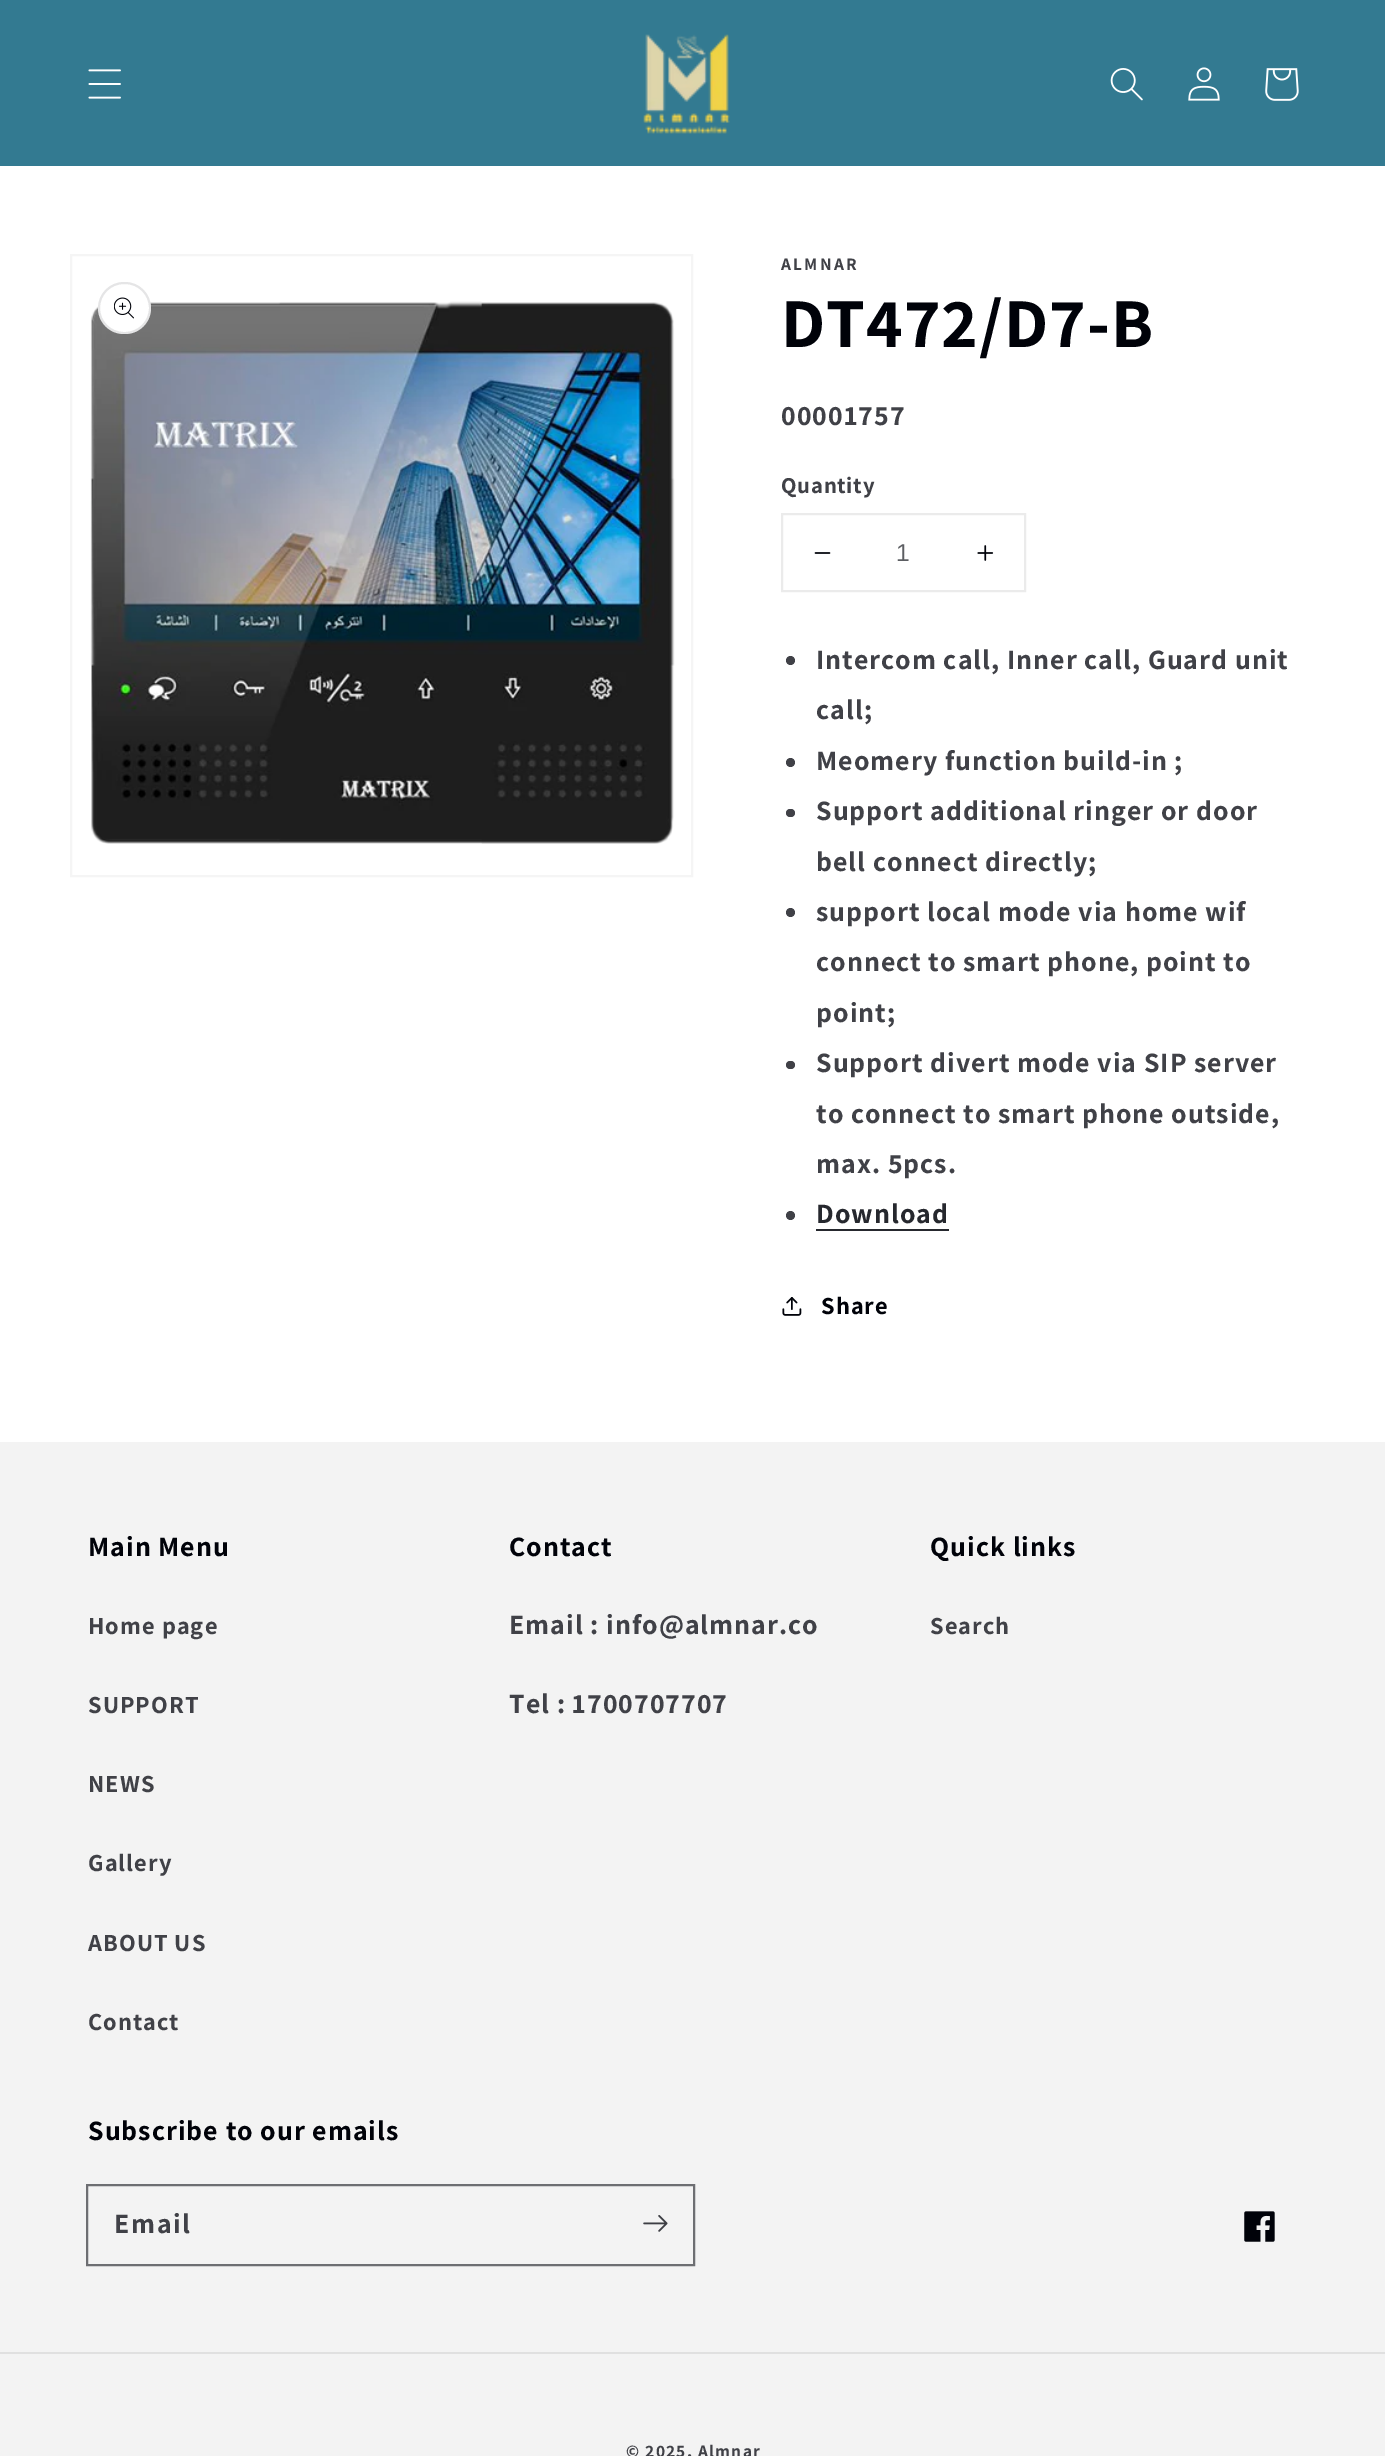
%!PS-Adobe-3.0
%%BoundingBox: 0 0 1385 2456
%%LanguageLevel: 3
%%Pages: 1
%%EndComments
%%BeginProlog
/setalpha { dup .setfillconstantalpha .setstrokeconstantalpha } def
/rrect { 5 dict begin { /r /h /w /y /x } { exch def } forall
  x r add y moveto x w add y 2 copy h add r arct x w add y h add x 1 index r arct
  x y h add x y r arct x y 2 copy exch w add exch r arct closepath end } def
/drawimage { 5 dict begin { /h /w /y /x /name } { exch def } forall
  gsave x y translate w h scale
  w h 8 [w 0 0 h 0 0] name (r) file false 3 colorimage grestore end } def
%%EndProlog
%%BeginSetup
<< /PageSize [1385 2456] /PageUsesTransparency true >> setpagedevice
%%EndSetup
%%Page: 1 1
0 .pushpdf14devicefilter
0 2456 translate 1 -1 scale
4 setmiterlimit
1 setgray
0 0 1385 2456 rectfill
0.2 0.478 0.569 setrgbcolor
0 0 1385 166 rectfill
(images/1.raw) 88 69 33 30 drawimage
(images/2.raw) 643 34 87 100 drawimage
(images/3.raw) 1110 68 33 33 drawimage
(images/4.raw) 1188 67 32 34 drawimage
(images/5.raw) 1265 68 34 33 drawimage
0.961 setgray
2 setlinewidth
71 255 621 621 rectstroke
(images/7.raw) 90 301 585 543 drawimage
1 setgray
98 282 53 52 26 rrect fill
0.1 setalpha
0 0.008 0.035 setrgbcolor
99 283 51 50 25 rrect stroke
1 setalpha
(images/6.raw) 114 297 20 22 drawimage
0.922 setgray
782 514 243 77 rectstroke
(images/8.raw) 814 552 17 2 drawimage
(images/9.raw) 977 545 17 16 drawimage
0.251 0.255 0.278 setrgbcolor
newpath 790.5 660.5 4.5 0 360 arc closepath fill
newpath 790.5 762.5 4.5 0 360 arc closepath fill
786 809 9 8 4 rrect fill
newpath 790.5 912.5 4.5 0 360 arc closepath fill
786 1061 9 8 4 rrect fill
newpath 790.5 1215.5 4.5 0 360 arc closepath fill
0.149 0.157 0.18 setrgbcolor
816 1229 133 2 rectfill
(images/10.raw) 782 1297 20 19 drawimage
0.953 setgray
0 1442 1385 1014 rectfill
0.427 0.431 0.447 setrgbcolor
87 2185 607 80 rectstroke
(images/11.raw) 643 2215 25 17 drawimage
(images/12.raw) 1244 2211 31 31 drawimage
0.878 setgray
0 2352 1385 2 rectfill
/Assistant-Bold [17.5 0 0 -17.5 0 0] selectfont
0.251 0.255 0.278 setrgbcolor
781 270 moveto 2.25 0 (ALMNAR) ashow
/Assistant-Bold [70 0 0 -70 0 0] selectfont
0 0.008 0.035 setrgbcolor
781 347 moveto 1.05 0 (DT472/D7-B) ashow
/Assistant-Bold [28 0 0 -28 0 0] selectfont
0.251 0.255 0.278 setrgbcolor
781 425 moveto 1.05 0 (00001757) ashow
/Assistant-Bold [22.75 0 0 -22.75 0 0] selectfont
781 493 moveto 0.75 0 (Quantity) ashow
/LiberationSans-Regular [24.5 0 0 -24.5 0 0] selectfont
0.361 0.369 0.384 setrgbcolor
896 561 moveto (1) show
/Assistant-Bold [28 0 0 -28 0 0] selectfont
0.251 0.255 0.278 setrgbcolor
816 669 moveto 1.05 0 (Intercom call, Inner call, Guard unit) ashow
816 719 moveto 1.05 0 (call;) ashow
816 770 moveto 1.05 0 (Meomery function build-in ;) ashow
816 820 moveto 1.05 0 (Support additional ringer or door) ashow
816 871 moveto 1.05 0 (bell connect directly;) ashow
816 921 moveto 1.05 0 (support local mode via home wif) ashow
816 971 moveto 1.05 0 (connect to smart phone, point to) ashow
816 1022 moveto 1.05 0 (point;) ashow
816 1072 moveto 1.05 0 (Support divert mode via SIP server) ashow
816 1123 moveto 1.05 0 (to connect to smart phone outside,) ashow
816 1173 moveto 1.05 0 (max. 5pcs.) ashow
0.149 0.157 0.18 setrgbcolor
816 1223 moveto 1.05 0 (Download) ashow
/Assistant-Bold [24.5 0 0 -24.5 0 0] selectfont
0 0.008 0.035 setrgbcolor
821 1314 moveto 1.05 0 (Share) ashow
/Assistant-Bold [28 0 0 -28 0 0] selectfont
88 1556 moveto 1.05 0 (Main Menu) ashow
/Assistant-Bold [24.5 0 0 -24.5 0 0] selectfont
0.251 0.255 0.278 setrgbcolor
88 1634 moveto 1.05 0 (Home page) ashow
88 1713 moveto 1.05 0 (SUPPORT) ashow
88 1792 moveto 1.05 0 (NEWS) ashow
88 1871 moveto 1.05 0 (Gallery) ashow
88 1951 moveto 1.05 0 (ABOUT US) ashow
88 2030 moveto 1.05 0 (Contact) ashow
/Assistant-Bold [28 0 0 -28 0 0] selectfont
0 0.008 0.035 setrgbcolor
509 1556 moveto 1.05 0 (Contact) ashow
0.251 0.255 0.278 setrgbcolor
509 1634 moveto 1.05 0 (Email : info@almnar.co) ashow
509 1713 moveto 1.05 0 (Tel : 1700707707) ashow
0 0.008 0.035 setrgbcolor
930 1556 moveto 1.05 0 (Quick links) ashow
/Assistant-Bold [24.5 0 0 -24.5 0 0] selectfont
0.251 0.255 0.278 setrgbcolor
930 1634 moveto 1.05 0 (Search) ashow
/Assistant-Bold [28 0 0 -28 0 0] selectfont
0 0.008 0.035 setrgbcolor
88 2140 moveto 1.05 0 (Subscribe to our emails) ashow
0.251 0.255 0.278 setrgbcolor
114 2233 moveto 1.75 0 (Email) ashow
/Assistant-Bold [17.5 0 0 -17.5 0 0] selectfont
626 2457 moveto 1.25 0 (© 2025, Almnar) ashow
.poppdf14devicefilter showpage
%%EOF
